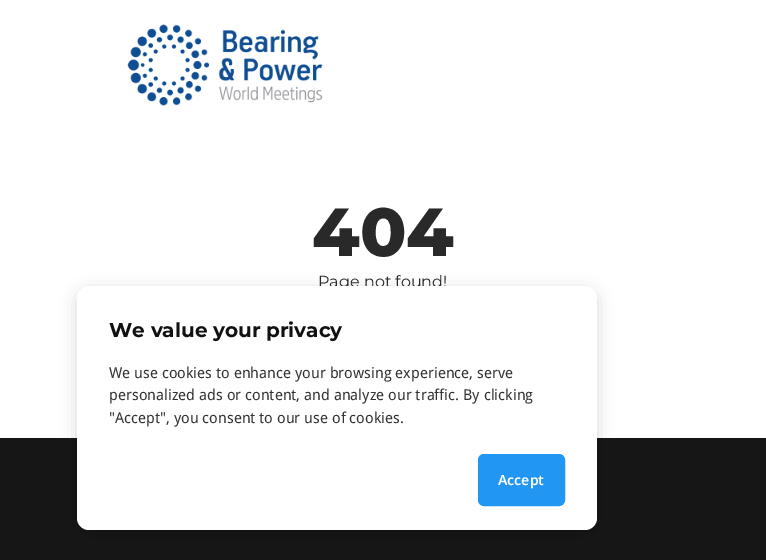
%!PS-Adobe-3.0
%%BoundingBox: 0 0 766 560
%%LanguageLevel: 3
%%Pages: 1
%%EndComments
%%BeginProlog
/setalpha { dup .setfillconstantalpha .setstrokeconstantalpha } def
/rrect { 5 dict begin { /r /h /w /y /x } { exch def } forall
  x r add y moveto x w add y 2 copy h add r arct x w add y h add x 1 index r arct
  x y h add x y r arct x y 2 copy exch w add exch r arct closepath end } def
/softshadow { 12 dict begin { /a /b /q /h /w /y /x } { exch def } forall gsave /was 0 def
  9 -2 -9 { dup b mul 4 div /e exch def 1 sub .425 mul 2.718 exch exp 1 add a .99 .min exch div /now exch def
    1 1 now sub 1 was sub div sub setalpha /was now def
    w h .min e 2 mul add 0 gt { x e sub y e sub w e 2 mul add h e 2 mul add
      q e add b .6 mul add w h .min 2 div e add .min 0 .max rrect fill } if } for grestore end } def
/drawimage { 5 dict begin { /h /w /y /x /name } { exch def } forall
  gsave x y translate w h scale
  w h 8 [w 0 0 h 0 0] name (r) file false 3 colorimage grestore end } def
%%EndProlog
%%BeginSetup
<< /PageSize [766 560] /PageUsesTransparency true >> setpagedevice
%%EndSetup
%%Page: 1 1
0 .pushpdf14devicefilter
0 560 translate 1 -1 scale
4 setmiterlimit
1 setgray
0 0 766 560 rectfill
(images/1.raw) 127 24 196 82 drawimage
0.086 setgray
0 438 766 122 rectfill
0 setgray
77 290 520 244 12 8 0.15 softshadow
/Montserrat-ExtraBold [68 0 0 -68 0 0] selectfont
0.161 setgray
312 256 moveto (404) show
/Montserrat-Regular [16 0 0 -16 0 0] selectfont
318 287 moveto (Page not found!) show
1 setgray
77 286 520 244 12 rrect fill
/Montserrat-Bold [20 0 0 -20 0 0] selectfont
0.067 setgray
109 337 moveto (We value your privacy) show
/DroidSans-Regular [15 0 0 -15 0 0] selectfont
0.2 setgray
109 378 moveto (We use cookies to enhance your browsing experience, serve) show
109 400 moveto (personalized ads or content, and analyze our traffic. By clicking) show
109 423 moveto ("Accept", you consent to our use of cookies.) show
0.129 0.588 0.953 setrgbcolor
479 455 85 50 5 rrect gsave fill grestore
2 setlinewidth
stroke
/NotoSans-SemiBold [14 0 0 -14 0 0] selectfont
1 setgray
498 485 moveto (Accept) show
.poppdf14devicefilter showpage
%%EOF
